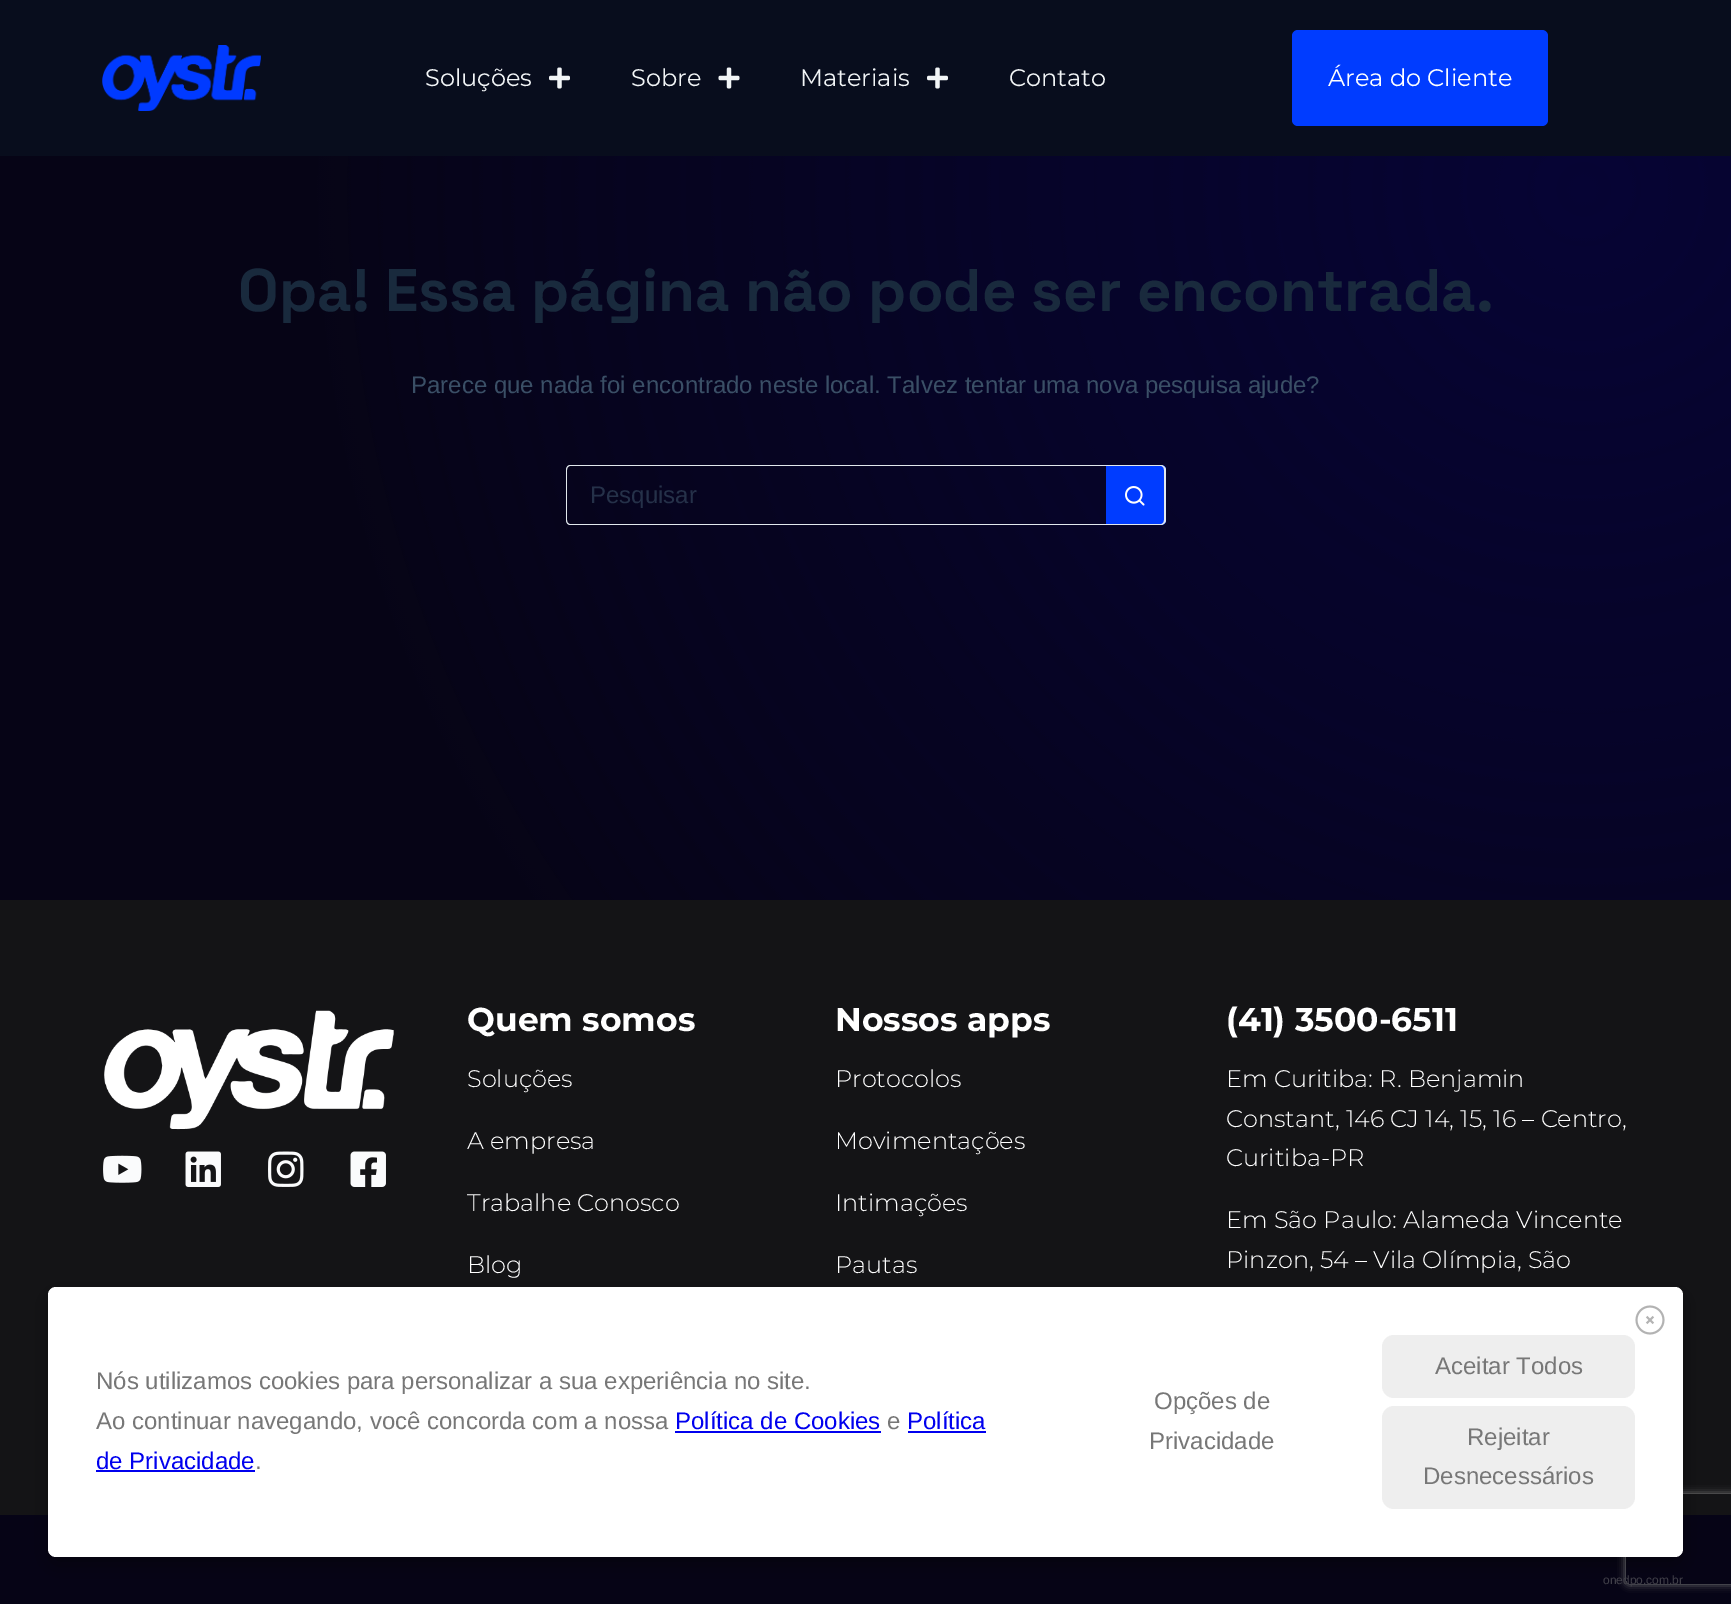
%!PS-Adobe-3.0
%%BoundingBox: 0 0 1731 1604
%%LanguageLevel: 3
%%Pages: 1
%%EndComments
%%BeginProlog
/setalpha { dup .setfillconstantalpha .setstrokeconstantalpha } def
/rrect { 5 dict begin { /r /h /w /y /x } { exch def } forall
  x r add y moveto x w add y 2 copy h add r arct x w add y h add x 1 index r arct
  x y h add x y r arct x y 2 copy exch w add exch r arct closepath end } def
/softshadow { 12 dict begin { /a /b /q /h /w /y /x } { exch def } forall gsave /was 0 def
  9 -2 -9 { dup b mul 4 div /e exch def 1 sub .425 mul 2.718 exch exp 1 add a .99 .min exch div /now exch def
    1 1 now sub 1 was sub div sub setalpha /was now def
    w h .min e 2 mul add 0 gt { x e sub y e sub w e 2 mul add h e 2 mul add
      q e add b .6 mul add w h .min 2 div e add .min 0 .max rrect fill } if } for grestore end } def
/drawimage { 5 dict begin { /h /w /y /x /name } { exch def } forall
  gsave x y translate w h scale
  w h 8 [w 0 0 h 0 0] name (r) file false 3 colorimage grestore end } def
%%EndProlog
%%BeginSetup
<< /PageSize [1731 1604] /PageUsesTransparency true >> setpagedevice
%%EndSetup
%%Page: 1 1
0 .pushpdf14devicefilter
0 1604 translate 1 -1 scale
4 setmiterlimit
1 setgray
0 0 1731 1604 rectfill
(images/1.raw) 0 156 1731 1448 drawimage
0.031 0.051 0.114 setrgbcolor
0 0 1731 156 rectfill
(images/2.raw) 102 45 159 66 drawimage
(images/3.raw) 549 67 21 22 drawimage
(images/4.raw) 718 67 22 22 drawimage
(images/3.raw) 927 67 21 22 drawimage
0 0.235 1 setrgbcolor
1292 30 256 96 6 rrect fill
0.882 0.91 0.929 setrgbcolor
newpath 570 465 moveto 1106 465 lineto 1106 525 lineto 570 525 lineto 568 525 566 523 566 520 curveto 566 470 lineto 566 467 568 465 570 465 curveto closepath 570 466 moveto 1106 466 lineto 1106 524 lineto 570 524 lineto 568 524 567 522 567 520 curveto 567 470 lineto 567 468 568 466 570 466 curveto closepath eofill
0 0.235 1 setrgbcolor
newpath 1106 465 moveto 1161 465 lineto 1164 465 1166 467 1166 470 curveto 1166 520 lineto 1166 523 1164 525 1161 525 curveto 1106 525 lineto closepath fill
0.882 0.91 0.929 setrgbcolor
newpath 1106 465 moveto 1161 465 lineto 1163 465 1166 467 1166 470 curveto 1166 520 lineto 1166 523 1163 525 1161 525 curveto 1106 525 lineto closepath 1106 466 moveto 1161 466 lineto 1163 466 1164 468 1164 470 curveto 1164 520 lineto 1164 522 1163 524 1161 524 curveto 1106 524 lineto closepath eofill
(images/5.raw) 1125 486 20 20 drawimage
0.078 0.078 0.086 setrgbcolor
0 900 1731 615 rectfill
(images/6.raw) 104 1010 290 120 drawimage
(images/7.raw) 103 1155 39 28 drawimage
(images/8.raw) 185 1151 36 36 drawimage
(images/9.raw) 268 1151 36 36 drawimage
(images/10.raw) 350 1151 36 36 drawimage
0 setgray
48 1295 1635 270 8 11 0.35 softshadow
gsave
newpath 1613 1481 moveto 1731 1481 lineto 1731 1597 lineto 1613 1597 lineto closepath 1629 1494 moveto 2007 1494 lineto 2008.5 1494 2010 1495.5 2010 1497 curveto 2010 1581 lineto 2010 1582.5 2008.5 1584 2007 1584 curveto 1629 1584 lineto 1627.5 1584 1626 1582.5 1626 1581 curveto 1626 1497 lineto 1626 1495.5 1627.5 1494 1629 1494 curveto closepath eoclip newpath
0.502 setgray
1626 1494 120 90 3 4 1 softshadow
grestore
1 setgray
48 1287 1635 270 8 rrect fill
(images/11.raw) 1635 1305 30 30 drawimage
0 0 0.933 setrgbcolor
675 1431 206 2 rectfill
908 1431 78 2 rectfill
96 1470 159 2 rectfill
0.933 setgray
1382 1335 253 63 12 rrect fill
1382 1406 253 103 12 rrect fill
/Montserrat-Regular [24 0 0 -24 0 0] selectfont
0.949 0.961 0.969 setrgbcolor
425 86 moveto (Soluções) show
631 86 moveto (Sobre) show
800 86 moveto (Materiais) show
1009 86 moveto (Contato) show
1 setgray
1328 86 moveto (Área do Cliente) show
/SpaceGrotesk-Bold [60 0 0 -60 0 0] selectfont
0.098 0.165 0.239 setrgbcolor
238 311 moveto (Opa! Essa página não pode ser encontrada.) show
/LiberationSans-Regular [24 0 0 -24 0 0] selectfont
0.227 0.31 0.4 setrgbcolor
411 393 moveto (Parece que nada foi encontrado neste local. Talvez tentar uma nova pesquisa ajude?) show
0.145 0.192 0.286 setrgbcolor
590 503 moveto (Pesquisar) show
/Montserrat-Bold [33 0 0 -33 0 0] selectfont
1 setgray
467 1031 moveto (Quem somos) show
/Montserrat-Light [24 0 0 -24 0 0] selectfont
467 1087 moveto (Soluções) show
467 1149 moveto (A empresa) show
467 1211 moveto (Trabalhe Conosco) show
467 1273 moveto (Blog) show
/Montserrat-Bold [33 0 0 -33 0 0] selectfont
835 1031 moveto (Nossos apps) show
/Montserrat-Light [24 0 0 -24 0 0] selectfont
835 1087 moveto (Protocolos) show
835 1149 moveto (Movimentações) show
835 1211 moveto (Intimações) show
835 1273 moveto (Pautas) show
/Montserrat-Bold [33 0 0 -33 0 0] selectfont
1226 1031 moveto (\(41\) 3500-6511) show
/Montserrat-Light [24 0 0 -24 0 0] selectfont
1226 1087 moveto (Em Curitiba: R. Benjamin) show
1226 1127 moveto (Constant, 146 CJ 14, 15, 16 – Centro,) show
1226 1166 moveto (Curitiba-PR) show
1226 1228 moveto (Em São Paulo: Alameda Vincente) show
1226 1268 moveto (Pinzon, 54 – Vila Olímpia, São) show
/LiberationSans-Regular [24 0 0 -24 0 0] selectfont
0.467 setgray
96 1389 moveto (Nós utilizamos cookies para personalizar a sua experiência no site.) show
96 1429 moveto (Ao continuar navegando, você concorda com a nossa) show
0 0 0.933 setrgbcolor
675 1429 moveto (Política de Cookies) show
0.467 setgray
887 1429 moveto (e) show
0 0 0.933 setrgbcolor
907 1429 moveto (Política) show
96 1469 moveto (de Privacidade) show
0.467 setgray
255 1469 moveto (.) show
1154 1409 moveto (Opções de) show
1149 1449 moveto (Privacidade) show
1435 1374 moveto (Aceitar Todos) show
1467 1445 moveto (Rejeitar) show
1423 1484 moveto (Desnecessários) show
/LiberationSans-Regular [12 0 0 -12 0 0] selectfont
0.251 0.247 0.282 setrgbcolor
1603 1584 moveto (onedpo.com.br) show
.poppdf14devicefilter showpage
%%EOF
